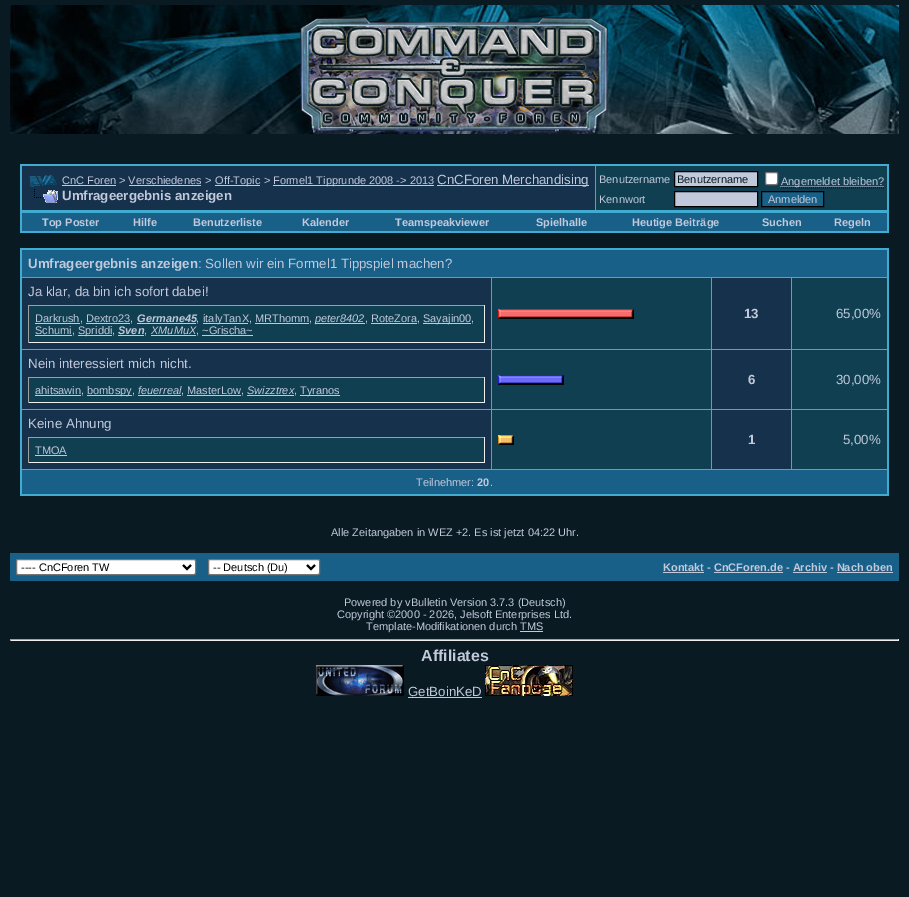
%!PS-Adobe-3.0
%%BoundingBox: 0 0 909 897
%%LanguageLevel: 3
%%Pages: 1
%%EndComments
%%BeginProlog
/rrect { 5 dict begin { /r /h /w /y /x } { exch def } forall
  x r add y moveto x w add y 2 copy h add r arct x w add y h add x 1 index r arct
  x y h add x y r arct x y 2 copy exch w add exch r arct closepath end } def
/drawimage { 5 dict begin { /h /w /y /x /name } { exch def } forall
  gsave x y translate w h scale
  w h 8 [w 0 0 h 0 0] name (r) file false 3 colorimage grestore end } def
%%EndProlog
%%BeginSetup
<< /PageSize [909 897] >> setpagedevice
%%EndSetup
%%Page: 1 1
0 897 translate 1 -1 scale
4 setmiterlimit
0.035 0.102 0.133 setrgbcolor
0 0 909 897 rectfill
(images/1.raw) 10 5 889 129 drawimage
(images/2.raw) 300 17 308 116 drawimage
0.255 0.675 0.816 setrgbcolor
20 164 869 48 rectfill
0.086 0.192 0.298 setrgbcolor
22 166 573 44 rectfill
(images/3.raw) 29 175 28 12 drawimage
0.757 0.788 0.859 setrgbcolor
62 185 54 1 rectfill
129 185 72 1 rectfill
215 185 45 1 rectfill
273 185 161 1 rectfill
(images/4.raw) 34 189 24 14 drawimage
437 185 152 1 rectfill
0.063 0.247 0.318 setrgbcolor
596 166 291 44 rectfill
0.757 0.788 0.859 setrgbcolor
newpath 674.5 171.5 moveto 757.5 171.5 lineto 757.5 186.5 lineto 674.5 186.5 lineto closepath gsave fill grestore
0 setgray
stroke
1 setgray
765.5 172.5 12 12 1.5 rrect gsave fill grestore
0.463 setgray
stroke
0 setgray
[1 1] 0 setdash
newpath 781 187.5 moveto 884 187.5 lineto stroke
0.757 0.788 0.859 setrgbcolor
newpath 780.5 186.5 moveto 884 186.5 lineto stroke
newpath 674.5 191.5 moveto 757.5 191.5 lineto 757.5 206.5 lineto 674.5 206.5 lineto closepath gsave fill grestore
0 setgray
[] 0 setdash
stroke
0.094 0.376 0.533 setrgbcolor
newpath 761.5 191.5 moveto 823.5 191.5 lineto 823.5 206.5 lineto 761.5 206.5 lineto closepath gsave fill grestore
0 setgray
stroke
0.255 0.675 0.816 setrgbcolor
21 212 867 20 rectfill
888 212 1 21 rectfill
20 232 869 1 rectfill
20 212 1 21 rectfill
0.094 0.376 0.533 setrgbcolor
22 213 865 18 rectfill
0.255 0.675 0.816 setrgbcolor
20 248 869 248 rectfill
0.094 0.376 0.533 setrgbcolor
22 250 865 27 rectfill
0.086 0.192 0.298 setrgbcolor
22 278 469 71 rectfill
0.063 0.247 0.318 setrgbcolor
29 306 455 36 rectfill
0.624 setgray
28 305 457 1 rectfill
0.933 setgray
484 305 1 38 rectfill
28 342 457 1 rectfill
0.624 setgray
28 305 1 38 rectfill
0.757 0.788 0.859 setrgbcolor
35 323 45 1 rectfill
137 323 59 1 rectfill
203 323 45 1 rectfill
315 323 50 1 rectfill
423 323 48 1 rectfill
86 323 44 1 rectfill
255 323 54 1 rectfill
371 323 46 1 rectfill
35 335 37 1 rectfill
78 335 34 1 rectfill
118 335 26 1 rectfill
151 335 45 1 rectfill
202 335 51 1 rectfill
0.063 0.247 0.318 setrgbcolor
492 278 219 71 rectfill
(images/5.raw) 498 309 3 10 drawimage
(images/6.raw) 501 309 130 10 drawimage
(images/7.raw) 631 309 3 10 drawimage
0.086 0.192 0.298 setrgbcolor
712 278 79 71 rectfill
0.063 0.247 0.318 setrgbcolor
792 278 95 71 rectfill
0.086 0.192 0.298 setrgbcolor
22 350 469 59 rectfill
0.063 0.247 0.318 setrgbcolor
29 378 455 24 rectfill
0.624 setgray
28 377 457 1 rectfill
0.933 setgray
484 377 1 26 rectfill
28 402 457 1 rectfill
0.624 setgray
28 377 1 26 rectfill
0.757 0.788 0.859 setrgbcolor
35 395 46 1 rectfill
87 395 45 1 rectfill
138 395 43 1 rectfill
247 395 47 1 rectfill
300 395 40 1 rectfill
187 395 54 1 rectfill
0.063 0.247 0.318 setrgbcolor
492 350 219 59 rectfill
(images/8.raw) 498 375 3 10 drawimage
(images/9.raw) 501 375 60 10 drawimage
(images/10.raw) 561 375 3 10 drawimage
0.086 0.192 0.298 setrgbcolor
712 350 79 59 rectfill
0.063 0.247 0.318 setrgbcolor
792 350 95 59 rectfill
0.086 0.192 0.298 setrgbcolor
22 410 469 59 rectfill
0.063 0.247 0.318 setrgbcolor
29 438 455 24 rectfill
0.624 setgray
28 437 457 1 rectfill
0.933 setgray
484 437 1 26 rectfill
28 462 457 1 rectfill
0.624 setgray
28 437 1 26 rectfill
0.757 0.788 0.859 setrgbcolor
35 455 32 1 rectfill
0.063 0.247 0.318 setrgbcolor
492 410 219 59 rectfill
(images/11.raw) 498 435 3 10 drawimage
(images/12.raw) 501 435 10 10 drawimage
(images/13.raw) 511 435 3 10 drawimage
0.086 0.192 0.298 setrgbcolor
712 410 79 59 rectfill
0.063 0.247 0.318 setrgbcolor
792 410 95 59 rectfill
0.094 0.376 0.533 setrgbcolor
22 470 865 24 rectfill
10 553 889 28 rectfill
1 setgray
16.5 559.5 179 15 1.5 rrect gsave fill grestore
0.463 setgray
stroke
0 setgray
2 setlinewidth
newpath 183 565 moveto 187 569 lineto 191 565 lineto stroke
1 setgray
208.5 559.5 111 15 1.5 rrect gsave fill grestore
0.463 setgray
1 setlinewidth
stroke
0 setgray
2 setlinewidth
newpath 307 565 moveto 311 569 lineto 315 565 lineto stroke
0.757 0.788 0.859 setrgbcolor
663 572 41 1 rectfill
714 572 69 1 rectfill
793 572 34 1 rectfill
837 572 56 1 rectfill
520 631 23 1 rectfill
0.624 setgray
10 639 889 1 rectfill
0.933 setgray
898 639 1 2 rectfill
10 640 889 1 rectfill
0.624 setgray
10 639 1 2 rectfill
(images/14.raw) 316 665 88 31 drawimage
0.757 0.788 0.859 setrgbcolor
408 697 74 1 rectfill
(images/15.raw) 485 665 88 31 drawimage
/LiberationSans-Regular [11 0 0 -11 0 0] selectfont
62 184 moveto (CnC Foren) show
119 184 moveto (> Verschiedenes) show
205 184 moveto (>) show
215 184 moveto (Off-Topic) show
264 184 moveto (>) show
273 184 moveto (Formel1 Tipprunde 2008 -> 2013) show
/LiberationSans-Bold [13.3 0 0 -13.3 0 0] selectfont
62 200 moveto (Umfrageergebnis anzeigen) show
/LiberationSans-Regular [13.3 0 0 -13.3 0 0] selectfont
437 184 moveto (CnCForen Merchandising) show
/LiberationSans-Regular [11 0 0 -11 0 0] selectfont
599 183 moveto (Benutzername) show
0.035 0.102 0.133 setrgbcolor
677 183 moveto (Benutzername) show
0.757 0.788 0.859 setrgbcolor
781 185 moveto (Angemeldet bleiben?) show
599 203 moveto (Kennwort) show
768 203 moveto (Anmelden) show
/LiberationSans-Bold [11 0 0 -11 0 0] selectfont
42 226 moveto (Top Poster) show
133 226 moveto (Hilfe) show
193 226 moveto (Benutzerliste) show
302 226 moveto (Kalender) show
395 226 moveto (Teamspeakviewer) show
536 226 moveto (Spielhalle) show
632 226 moveto (Heutige Beiträge) show
762 226 moveto (Suchen) show
834 226 moveto (Regeln) show
/LiberationSans-Bold [13.3 0 0 -13.3 0 0] selectfont
28 268 moveto (Umfrageergebnis anzeigen) show
/LiberationSans-Regular [13.3 0 0 -13.3 0 0] selectfont
198 268 moveto (: Sollen wir ein Formel1 Tippspiel machen?) show
28 296 moveto (Ja klar, da bin ich sofort dabei!) show
/LiberationSans-Regular [11 0 0 -11 0 0] selectfont
35 322 moveto (Darkrush, Dextro23,) show
/LiberationSans-BoldItalic [11 0 0 -11 0 0] selectfont
137 322 moveto (Germane45) show
/LiberationSans-Regular [11 0 0 -11 0 0] selectfont
196 322 moveto (,) show
203 322 moveto (italyTanX, MRThomm,) show
/LiberationSans-Italic [11 0 0 -11 0 0] selectfont
315 322 moveto (peter8402) show
/LiberationSans-Regular [11 0 0 -11 0 0] selectfont
365 322 moveto (, RoteZora,) show
423 322 moveto (Sayajin00,) show
35 334 moveto (Schumi,) show
78 334 moveto (Spriddi,) show
/LiberationSans-BoldItalic [11 0 0 -11 0 0] selectfont
118 334 moveto (Sven) show
/LiberationSans-Regular [11 0 0 -11 0 0] selectfont
144 334 moveto (,) show
/LiberationSans-Italic [11 0 0 -11 0 0] selectfont
151 334 moveto (XMuMuX) show
/LiberationSans-Regular [11 0 0 -11 0 0] selectfont
196 334 moveto (, ~Grischa~) show
/LiberationSans-Bold [13.3 0 0 -13.3 0 0] selectfont
744 318 moveto (13) show
/LiberationSans-Regular [13.3 0 0 -13.3 0 0] selectfont
836 318 moveto (65,00%) show
28 368 moveto (Nein interessiert mich nicht.) show
/LiberationSans-Regular [11 0 0 -11 0 0] selectfont
35 394 moveto (ahitsawin,) show
87 394 moveto (bombspy,) show
/LiberationSans-Italic [11 0 0 -11 0 0] selectfont
138 394 moveto (feuerreal) show
/LiberationSans-Regular [11 0 0 -11 0 0] selectfont
181 394 moveto (, MasterLow,) show
/LiberationSans-Italic [11 0 0 -11 0 0] selectfont
247 394 moveto (Swizztrex) show
/LiberationSans-Regular [11 0 0 -11 0 0] selectfont
294 394 moveto (,) show
300 394 moveto (Tyranos) show
/LiberationSans-Bold [13.3 0 0 -13.3 0 0] selectfont
748 384 moveto (6) show
/LiberationSans-Regular [13.3 0 0 -13.3 0 0] selectfont
836 384 moveto (30,00%) show
28 428 moveto (Keine Ahnung) show
/LiberationSans-Regular [11 0 0 -11 0 0] selectfont
35 454 moveto (TMOA) show
/LiberationSans-Bold [13.3 0 0 -13.3 0 0] selectfont
748 444 moveto (1) show
/LiberationSans-Regular [13.3 0 0 -13.3 0 0] selectfont
843 444 moveto (5,00%) show
/LiberationSans-Regular [11 0 0 -11 0 0] selectfont
416 486 moveto (Teilnehmer:) show
/LiberationSans-Bold [11 0 0 -11 0 0] selectfont
477 486 moveto (20) show
/LiberationSans-Regular [11 0 0 -11 0 0] selectfont
490 486 moveto (.) show
331 536 moveto (Alle Zeitangaben in WEZ +2. Es ist jetzt 04:22 Uhr.) show
0 setgray
21 571 moveto (---- CnCForen TW) show
213 571 moveto (-- Deutsch \(Du\)) show
/LiberationSans-Bold [11 0 0 -11 0 0] selectfont
0.757 0.788 0.859 setrgbcolor
663 571 moveto (Kontakt - CnCForen.de - Archiv - Nach oben) show
/LiberationSans-Regular [11 0 0 -11 0 0] selectfont
344 606 moveto (Powered by vBulletin Version 3.7.3 \(Deutsch\)) show
337 618 moveto (Copyright ©2000 - 2026, Jelsoft Enterprises Ltd.) show
366 630 moveto (Template-Modifikationen durch TMS) show
/LiberationSans-Bold [16 0 0 -16 0 0] selectfont
421 661 moveto (Affiliates) show
/LiberationSans-Regular [13.3 0 0 -13.3 0 0] selectfont
408 696 moveto (GetBoinKeD) show
showpage
%%EOF
